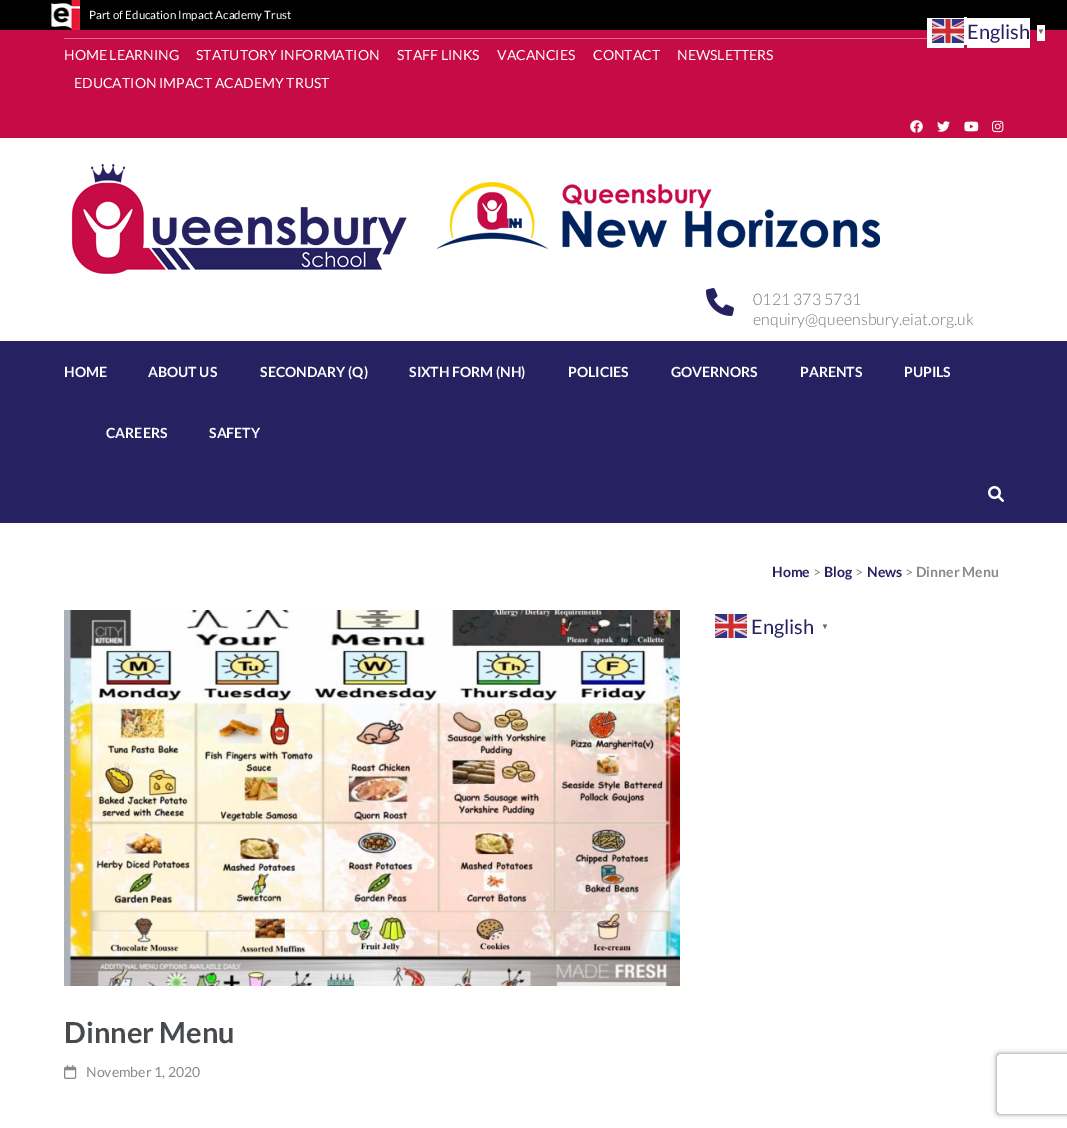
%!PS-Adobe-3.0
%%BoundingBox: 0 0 1067 1128
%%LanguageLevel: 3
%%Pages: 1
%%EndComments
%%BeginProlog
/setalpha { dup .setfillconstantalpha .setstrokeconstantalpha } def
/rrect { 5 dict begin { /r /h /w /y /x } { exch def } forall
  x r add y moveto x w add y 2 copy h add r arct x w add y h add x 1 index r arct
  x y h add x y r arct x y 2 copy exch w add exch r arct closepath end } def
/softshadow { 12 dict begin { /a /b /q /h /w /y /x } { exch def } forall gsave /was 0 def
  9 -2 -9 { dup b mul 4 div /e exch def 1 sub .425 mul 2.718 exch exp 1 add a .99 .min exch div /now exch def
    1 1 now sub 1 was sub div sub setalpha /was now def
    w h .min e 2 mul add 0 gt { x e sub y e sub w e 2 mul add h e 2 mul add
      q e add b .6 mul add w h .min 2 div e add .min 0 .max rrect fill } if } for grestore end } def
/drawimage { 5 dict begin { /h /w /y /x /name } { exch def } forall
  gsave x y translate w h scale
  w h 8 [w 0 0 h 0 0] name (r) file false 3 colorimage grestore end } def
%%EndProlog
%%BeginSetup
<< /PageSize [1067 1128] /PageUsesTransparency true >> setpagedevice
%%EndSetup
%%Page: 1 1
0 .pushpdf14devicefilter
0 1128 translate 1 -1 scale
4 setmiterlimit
1 setgray
0 0 1067 1128 rectfill
0 setgray
0 0 1067 30 rectfill
(images/1.raw) 49 0 31 30 drawimage
0.776 0.043 0.275 setrgbcolor
0 30 1067 108 rectfill
0.867 0.427 0.565 setrgbcolor
64 38 863 1 rectfill
(images/2.raw) 910 120 13 13 drawimage
(images/3.raw) 937 121 13 11 drawimage
(images/4.raw) 964 121 15 11 drawimage
(images/5.raw) 992 120 12 13 drawimage
(images/6.raw) 71 164 809 110 drawimage
(images/7.raw) 706 288 28 28 drawimage
0.149 0.133 0.384 setrgbcolor
0 341 1067 182 rectfill
(images/8.raw) 988 486 16 16 drawimage
(images/9.raw) 715 614 32 24 drawimage
(images/10.raw) 64 610 616 376 drawimage
(images/11.raw) 64 1065 13 14 drawimage
1 setgray
927 18 37 30 rectfill
(images/9.raw) 932 19 32 24 drawimage
964 17 3 28 rectfill
967 18 63 30 rectfill
1037 25 8 16 rectfill
gsave
newpath 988 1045 moveto 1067 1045 lineto 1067 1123 lineto 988 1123 lineto closepath 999 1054 moveto 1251 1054 lineto 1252 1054 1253 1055 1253 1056 curveto 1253 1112 lineto 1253 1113 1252 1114 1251 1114 curveto 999 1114 lineto 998 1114 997 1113 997 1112 curveto 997 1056 lineto 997 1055 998 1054 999 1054 curveto closepath eoclip newpath
0.502 setgray
997 1054 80 60 2 2.5 1 softshadow
grestore
/Lato-Regular [11.5 0 0 -11.5 0 0] selectfont
89 19 moveto (Part of Education Impact Academy Trust) show
/Lato-Regular [14 0 0 -14 0 0] selectfont
64 60 moveto (HOME LEARNING) show
196 60 moveto (STATUTORY INFORMATION) show
397 60 moveto (STAFF LINKS) show
497 60 moveto (VACANCIES) show
593 60 moveto (CONTACT) show
677 60 moveto (NEWSLETTERS) show
74 88 moveto (EDUCATION IMPACT ACADEMY TRUST) show
/Lato-Light [16 0 0 -16 0 0] selectfont
0.455 setgray
753 305 moveto (0121 373 5731) show
753 325 moveto (enquiry@queensbury.eiat.org.uk) show
/Lato-Bold [14 0 0 -14 0 0] selectfont
1 setgray
64 377 moveto (HOME) show
148 377 moveto (ABOUT US) show
260 377 moveto (SECONDARY \(Q\)) show
409 377 moveto (SIXTH FORM \(NH\)) show
568 377 moveto (POLICIES) show
671 377 moveto (GOVERNORS) show
800 377 moveto (PARENTS) show
904 377 moveto (PUPILS) show
106 438 moveto (CAREERS) show
209 438 moveto (SAFETY) show
0.149 0.133 0.384 setrgbcolor
772 577 moveto (Home) show
/Lato-Regular [14 0 0 -14 0 0] selectfont
0.529 0.545 0.553 setrgbcolor
813 577 moveto (>) show
/Lato-Bold [14 0 0 -14 0 0] selectfont
0.149 0.133 0.384 setrgbcolor
824 577 moveto (Blog) show
/Lato-Regular [14 0 0 -14 0 0] selectfont
0.529 0.545 0.553 setrgbcolor
855 577 moveto (>) show
/Lato-Bold [14 0 0 -14 0 0] selectfont
0.149 0.133 0.384 setrgbcolor
867 577 moveto (News) show
/Lato-Regular [14 0 0 -14 0 0] selectfont
0.529 0.545 0.553 setrgbcolor
905 577 moveto (>) show
/Lato-Bold [14 0 0 -14 0 0] selectfont
916 577 moveto (Dinner Menu) show
/Lato-Regular [20 0 0 -20 0 0] selectfont
0.149 0.133 0.384 setrgbcolor
751 634 moveto (English) show
/LiberationSerif-Bold [8 0 0 -8 0 0] selectfont
0.4 setgray
821 629 moveto (▼) show
/Lato-Bold [29 0 0 -29 0 0] selectfont
0.278 0.294 0.306 setrgbcolor
64 1043 moveto (Dinner Menu) show
/Lato-Regular [14 0 0 -14 0 0] selectfont
0.529 0.545 0.553 setrgbcolor
86 1077 moveto (November 1, 2020) show
/Lato-Regular [20 0 0 -20 0 0] selectfont
0.149 0.133 0.384 setrgbcolor
967 39 moveto (English) show
/LiberationSerif-Bold [8 0 0 -8 0 0] selectfont
0.4 setgray
1037 34 moveto (▼) show
.poppdf14devicefilter showpage
%%EOF
